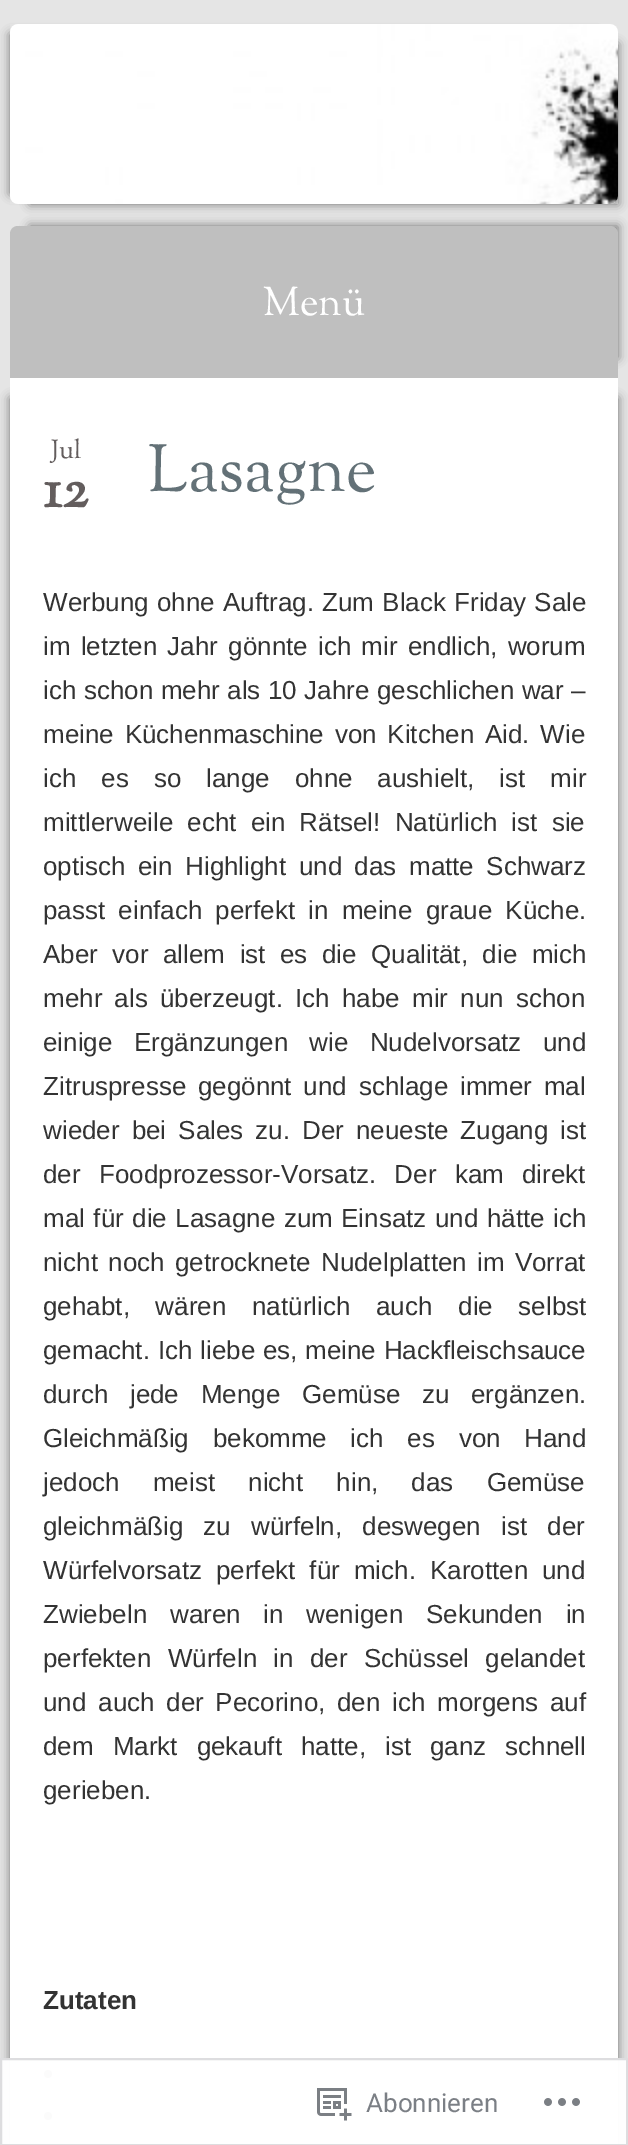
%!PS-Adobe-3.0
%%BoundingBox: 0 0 628 2145
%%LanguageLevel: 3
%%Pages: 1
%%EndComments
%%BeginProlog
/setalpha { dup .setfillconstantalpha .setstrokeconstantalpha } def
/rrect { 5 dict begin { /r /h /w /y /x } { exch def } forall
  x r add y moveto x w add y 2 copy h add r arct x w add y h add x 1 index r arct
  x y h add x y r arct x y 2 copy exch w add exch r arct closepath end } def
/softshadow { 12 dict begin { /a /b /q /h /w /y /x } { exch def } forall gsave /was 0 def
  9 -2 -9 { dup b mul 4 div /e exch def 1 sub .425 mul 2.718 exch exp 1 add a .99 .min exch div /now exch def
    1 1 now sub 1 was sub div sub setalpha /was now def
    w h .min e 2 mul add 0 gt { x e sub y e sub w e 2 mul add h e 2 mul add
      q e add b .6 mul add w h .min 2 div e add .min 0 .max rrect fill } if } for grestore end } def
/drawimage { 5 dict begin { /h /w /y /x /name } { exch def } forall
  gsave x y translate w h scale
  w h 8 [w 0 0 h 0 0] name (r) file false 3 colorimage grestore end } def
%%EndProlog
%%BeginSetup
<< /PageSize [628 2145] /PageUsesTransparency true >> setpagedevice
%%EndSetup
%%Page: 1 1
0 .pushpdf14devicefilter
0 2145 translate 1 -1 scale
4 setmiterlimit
0.898 setgray
0 0 628 2145 rectfill
0 setgray
10 34 588 160 0 5 0.5 softshadow
30 44 588 160 0 5 0.5 softshadow
(images/1.raw) 10 24 608 180 drawimage
30 226 588 132 0 5 0.5 softshadow
0.749 setgray
newpath 18 226 moveto 610 226 lineto 614.5 226 618 229.5 618 234 curveto 618 378 lineto 10 378 lineto 10 234 lineto 10 229.5 13.5 226 18 226 curveto closepath fill
0 setgray
10 398 588 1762 0 5 0.5 softshadow
30 398 588 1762 0 5 0.5 softshadow
1 setgray
10 378 608 1766 rectfill
0.2 setgray
newpath 48 2074 4 0 360 arc closepath fill
newpath 48 2116 4 0 360 arc closepath fill
0.98 setalpha
1 setgray
newpath 1 2059 moveto 627 2059 lineto 627 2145 lineto 1 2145 lineto closepath fill
1 setalpha
0.867 0.867 0.875 setrgbcolor
2 setlinewidth
newpath 1 2059 moveto 627 2059 lineto 627 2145 lineto 1 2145 lineto closepath stroke
(images/2.raw) 317 2088 35 33 drawimage
(images/3.raw) 544 2098 36 8 drawimage
/SortsMillGoudy-Regular [40 0 0 -40 0 0] selectfont
1 setgray
263 315 moveto (Menü) show
/SortsMillGoudy-Regular [26 0 0 -26 0 0] selectfont
0.388 0.365 0.365 setrgbcolor
51 458 moveto (Jul) show
/SortsMillGoudy-Bold [56 0 0 -56 0 0] selectfont
43 507 moveto (12) show
/SortsMillGoudy-Regular [66 0 0 -66 0 0] selectfont
0.388 0.443 0.467 setrgbcolor
148 491 moveto (Lasagne) show
/LiberationSans-Regular [26 0 0 -26 0 0] selectfont
0.2 setgray
43 611 moveto 1 0 32 (Werbung ohne Auftrag. Zum Black Friday Sale) widthshow
43 655 moveto 3 0 32 (im letzten Jahr gönnte ich mir endlich, worum) widthshow
43 699 moveto 0.25 0 32 (ich schon mehr als 10 Jahre geschlichen war –) widthshow
43 743 moveto 3.5 0 32 (meine Küchenmaschine von Kitchen Aid. Wie) widthshow
43 787 moveto 17.75 0 32 (ich es so lange ohne aushielt, ist mir) widthshow
43 831 moveto 7 0 32 (mittlerweile echt ein Rätsel! Natürlich ist sie) widthshow
43 875 moveto 5.25 0 32 (optisch ein Highlight und das matte Schwarz) widthshow
43 919 moveto 6 0 32 (passt einfach perfekt in meine graue Küche.) widthshow
43 963 moveto 7.25 0 32 (Aber vor allem ist es die Qualität, die mich) widthshow
43 1007 moveto 5 0 32 (mehr als überzeugt. Ich habe mir nun schon) widthshow
43 1051 moveto 14 0 32 (einige Ergänzungen wie Nudelvorsatz und) widthshow
43 1095 moveto 4.5 0 32 (Zitruspresse gegönnt und schlage immer mal) widthshow
43 1139 moveto 4.75 0 32 (wieder bei Sales zu. Der neueste Zugang ist) widthshow
43 1183 moveto 11 0 32 (der Foodprozessor-Vorsatz. Der kam direkt) widthshow
43 1227 moveto 1.25 0 32 (mal für die Lasagne zum Einsatz und hätte ich) widthshow
43 1271 moveto 3 0 32 (nicht noch getrocknete Nudelplatten im Vorrat) widthshow
43 1315 moveto 18.5 0 32 (gehabt, wären natürlich auch die selbst) widthshow
43 1359 moveto 0.5 0 32 (gemacht. Ich liebe es, meine Hackfleischsauce) widthshow
43 1403 moveto 14.5 0 32 (durch jede Menge Gemüse zu ergänzen.) widthshow
43 1447 moveto 16.5 0 32 (Gleichmäßig bekomme ich es von Hand) widthshow
43 1491 moveto 26 0 32 (jedoch meist nicht hin, das Gemüse) widthshow
43 1535 moveto 13 0 32 (gleichmäßig zu würfeln, deswegen ist der) widthshow
43 1579 moveto 6.75 0 32 (Würfelvorsatz perfekt für mich. Karotten und) widthshow
43 1623 moveto 15.5 0 32 (Zwiebeln waren in wenigen Sekunden in) widthshow
43 1667 moveto 9 0 32 (perfekten Würfeln in der Schüssel gelandet) widthshow
43 1711 moveto 4.5 0 32 (und auch der Pecorino, den ich morgens auf) widthshow
43 1755 moveto 11.75 0 32 (dem Markt gekauft hatte, ist ganz schnell) widthshow
43 1799 moveto (gerieben.) show
/LiberationSans-Bold [26 0 0 -26 0 0] selectfont
43 2009 moveto (Zutaten) show
/Roboto-Regular [26 0 0 -26 0 0] selectfont
0.482 0.498 0.522 setrgbcolor
366 2112 moveto (Abonnieren) show
.poppdf14devicefilter showpage
%%EOF
